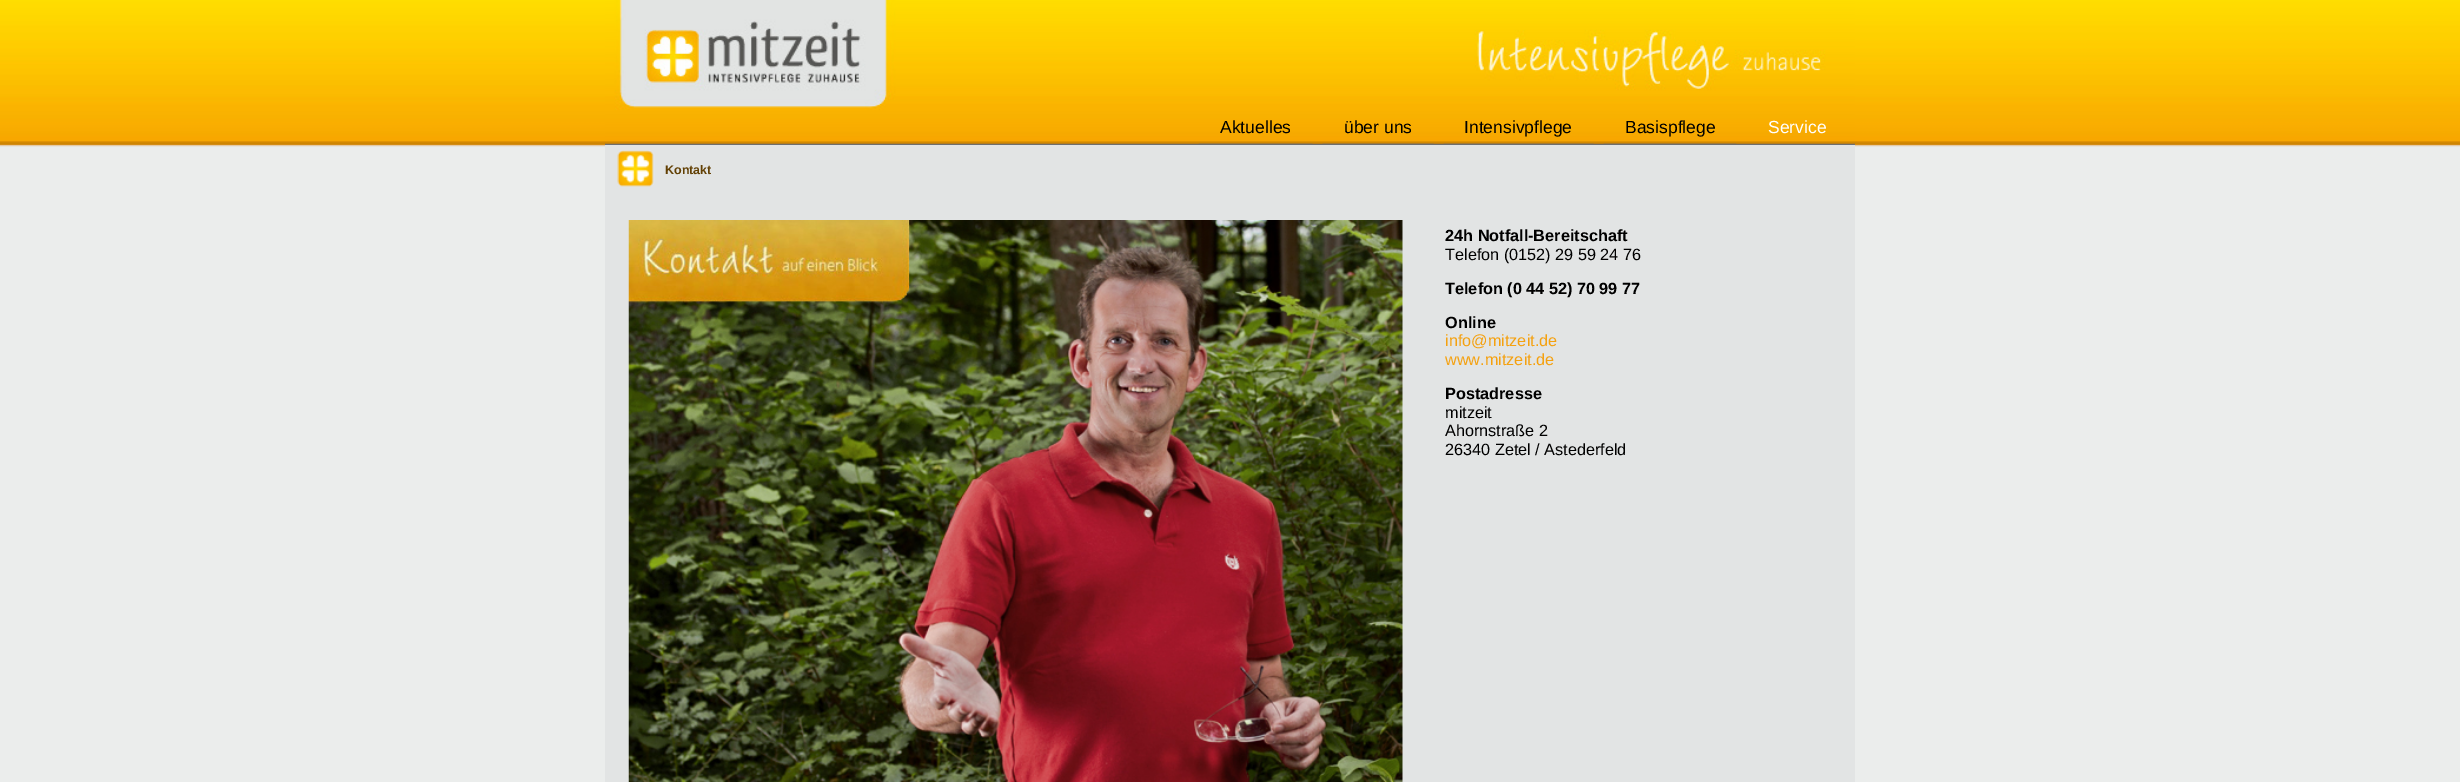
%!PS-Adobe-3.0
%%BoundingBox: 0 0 2460 782
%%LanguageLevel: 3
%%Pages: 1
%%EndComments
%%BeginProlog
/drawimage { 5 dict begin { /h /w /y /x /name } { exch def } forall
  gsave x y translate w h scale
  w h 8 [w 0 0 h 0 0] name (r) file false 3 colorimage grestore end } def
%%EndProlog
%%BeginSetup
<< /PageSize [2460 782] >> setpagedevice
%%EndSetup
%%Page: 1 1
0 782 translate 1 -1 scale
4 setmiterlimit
1 setgray
0 0 2460 782 rectfill
(images/1.raw) 0 0 2460 782 drawimage
(images/2.raw) 605 0 1250 144 drawimage
(images/7.raw) 605 143 1250 2 drawimage
(images/3.raw) 1198 143 115 1 drawimage
(images/4.raw) 1322 143 112 1 drawimage
(images/5.raw) 1443 143 151 1 drawimage
(images/6.raw) 1603 143 134 1 drawimage
0.886 0.894 0.894 setrgbcolor
605 145 1250 637 rectfill
(images/8.raw) 617 150 38 37 drawimage
(images/9.raw) 628 220 775 562 drawimage
/LiberationSans-Regular [17.5 0 0 -17.5 0 0] selectfont
0 setgray
1220 133 moveto (Aktuelles) show
1344 133 moveto (über uns) show
1464 133 moveto (Intensivpflege) show
1625 133 moveto (Basispflege) show
1 setgray
1768 133 moveto (Service) show
/LiberationSans-Bold [12.5 0 0 -12.5 0 0] selectfont
0.384 0.251 0.016 setrgbcolor
665 174 moveto (Kontakt) show
/LiberationSans-Bold [16.25 0 0 -16.25 0 0] selectfont
0 setgray
1445 241 moveto (24h Notfall-Bereitschaft) show
/LiberationSans-Regular [16.25 0 0 -16.25 0 0] selectfont
1445 260 moveto (Telefon \(0152\) 29 59 24 76) show
/LiberationSans-Bold [16.25 0 0 -16.25 0 0] selectfont
1445 294 moveto (Telefon \(0 44 52\) 70 99 77) show
1445 328 moveto (Online) show
/LiberationSans-Regular [16.25 0 0 -16.25 0 0] selectfont
0.961 0.631 0.059 setrgbcolor
1445 346 moveto (info@mitzeit.de) show
1445 365 moveto (www.mitzeit.de) show
/LiberationSans-Bold [16.25 0 0 -16.25 0 0] selectfont
0 setgray
1445 399 moveto (Postadresse) show
/LiberationSans-Regular [16.25 0 0 -16.25 0 0] selectfont
1445 418 moveto (mitzeit) show
1445 436 moveto (Ahornstraße 2) show
1445 455 moveto (26340 Zetel / Astederfeld) show
showpage
%%EOF
